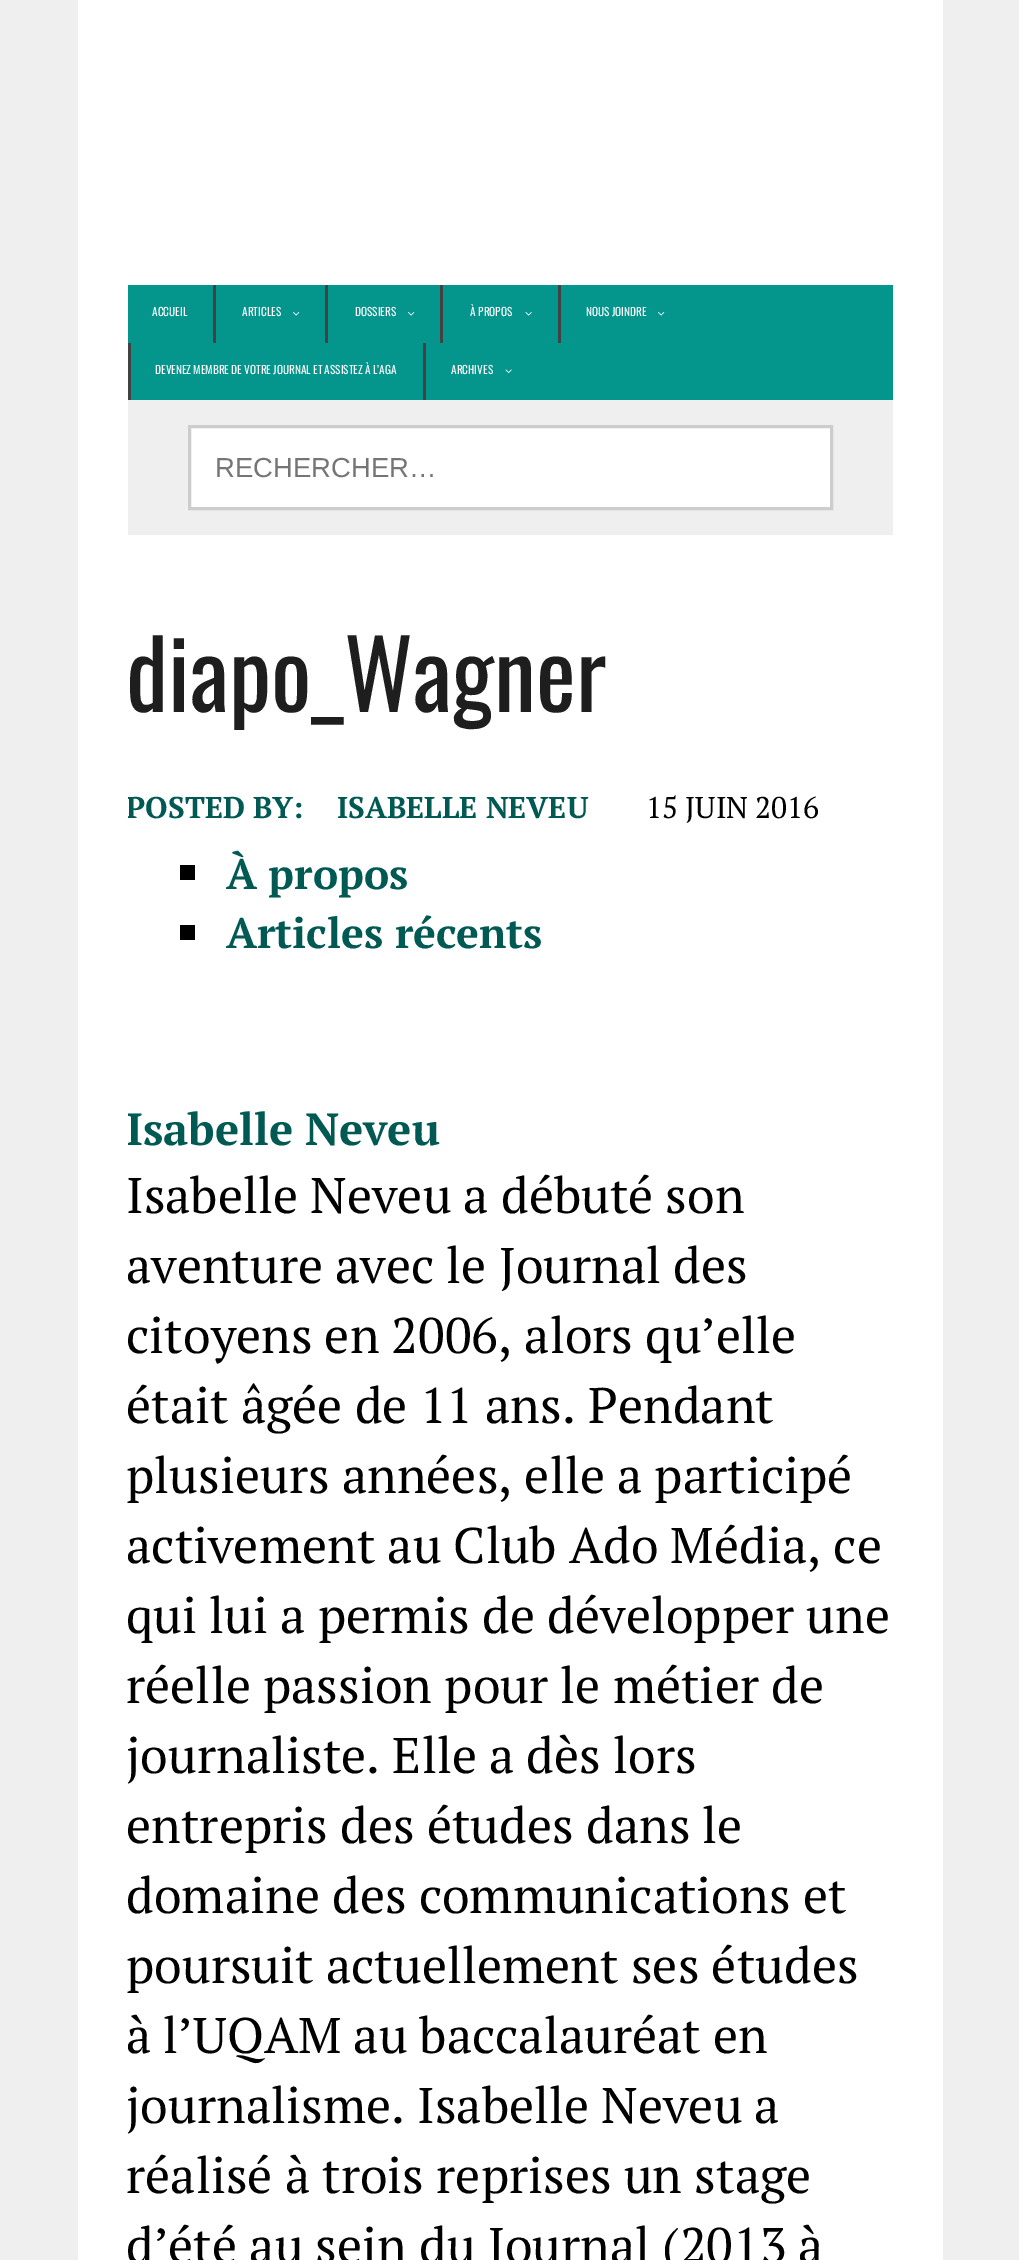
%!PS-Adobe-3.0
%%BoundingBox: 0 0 1019 2260
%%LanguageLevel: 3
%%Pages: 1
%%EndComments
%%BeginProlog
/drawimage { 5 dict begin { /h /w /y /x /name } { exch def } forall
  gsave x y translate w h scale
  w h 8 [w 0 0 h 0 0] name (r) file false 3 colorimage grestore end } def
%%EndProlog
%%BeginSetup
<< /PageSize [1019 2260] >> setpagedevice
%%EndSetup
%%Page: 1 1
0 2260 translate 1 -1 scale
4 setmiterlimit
0.937 setgray
0 0 1019 2260 rectfill
1 setgray
78 0 865 2260 rectfill
0.016 0.584 0.549 setrgbcolor
128 285 765 115 rectfill
0.259 setgray
213 285 3 58 rectfill
(images/1.raw) 293 312 7 4 drawimage
325 285 3 58 rectfill
(images/1.raw) 408 312 7 4 drawimage
440 285 3 58 rectfill
(images/2.raw) 525 312 7 4 drawimage
558 285 3 58 rectfill
(images/1.raw) 658 312 7 4 drawimage
128 343 3 57 rectfill
423 343 3 57 rectfill
(images/3.raw) 505 369 7 5 drawimage
0.937 setgray
128 400 765 135 rectfill
1 setgray
newpath 189.5 426.5 moveto 831.5 426.5 lineto 831.5 508.5 lineto 189.5 508.5 lineto closepath gsave fill grestore
0.804 setgray
3 setlinewidth
stroke
0 setgray
180 865 15 15 rectfill
180 925 15 15 rectfill
/Oswald-Regular [11.25 0 0 -11.25 0 0] selectfont
1 setgray
152 316 moveto (ACCUEIL) show
242 316 moveto (ARTICLES) show
355 316 moveto (DOSSIERS) show
470 316 moveto (À PROPOS) show
586 316 moveto (NOUS JOINDRE) show
155 374 moveto -0.25 0 32 (DEVENEZ MEMBRE DE VOTRE JOURNAL ET ASSISTEZ À L’AGA) widthshow
451 374 moveto (ARCHIVES) show
/LiberationSans-Regular [27.5 0 0 -27.5 0 0] selectfont
0.459 setgray
215 477 moveto (RECHERCHER…) show
/Oswald-Regular [95 0 0 -95 0 0] selectfont
0.122 0.118 0.118 setrgbcolor
126 712 moveto (diapo_Wagner) show
gsave
128 610 765 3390 rectclip
/PTSerif-Bold [30 0 0 -30 0 0] selectfont
0 0.349 0.325 setrgbcolor
126 818 moveto (POSTED BY:) show
grestore
/PTSerif-Bold [30 0 0 -30 0 0] selectfont
0 0.349 0.325 setrgbcolor
337 818 moveto (ISABELLE NEVEU) show
/PTSerif-Regular [30 0 0 -30 0 0] selectfont
0 setgray
646 818 moveto (15 JUIN 2016) show
/PTSerif-Bold [42.5 0 0 -42.5 0 0] selectfont
0 0.349 0.325 setrgbcolor
226 889 moveto (À propos) show
226 948 moveto (Articles récents) show
gsave
128 610 765 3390 rectclip
/PTSerif-Bold [45 0 0 -45 0 0] selectfont
126 1145 moveto (Isabelle Neveu) show
grestore
/PTSerif-Regular [50 0 0 -50 0 0] selectfont
0 setgray
126 1213 moveto (Isabelle Neveu a débuté son) show
126 1283 moveto (aventure avec le Journal des) show
126 1353 moveto (citoyens en 2006, alors qu’elle) show
126 1423 moveto (était âgée de 11 ans. Pendant) show
126 1493 moveto (plusieurs années, elle a participé) show
126 1563 moveto (activement au Club Ado Média, ce) show
126 1633 moveto (qui lui a permis de développer une) show
126 1703 moveto (réelle passion pour le métier de) show
126 1773 moveto (journaliste. Elle a dès lors) show
126 1843 moveto (entrepris des études dans le) show
126 1913 moveto (domaine des communications et) show
126 1983 moveto (poursuit actuellement ses études) show
126 2053 moveto (à l’UQAM au baccalauréat en) show
126 2123 moveto (journalisme. Isabelle Neveu a) show
126 2193 moveto (réalisé à trois reprises un stage) show
126 2263 moveto (d’été au sein du Journal \(2013 à) show
showpage
%%EOF
